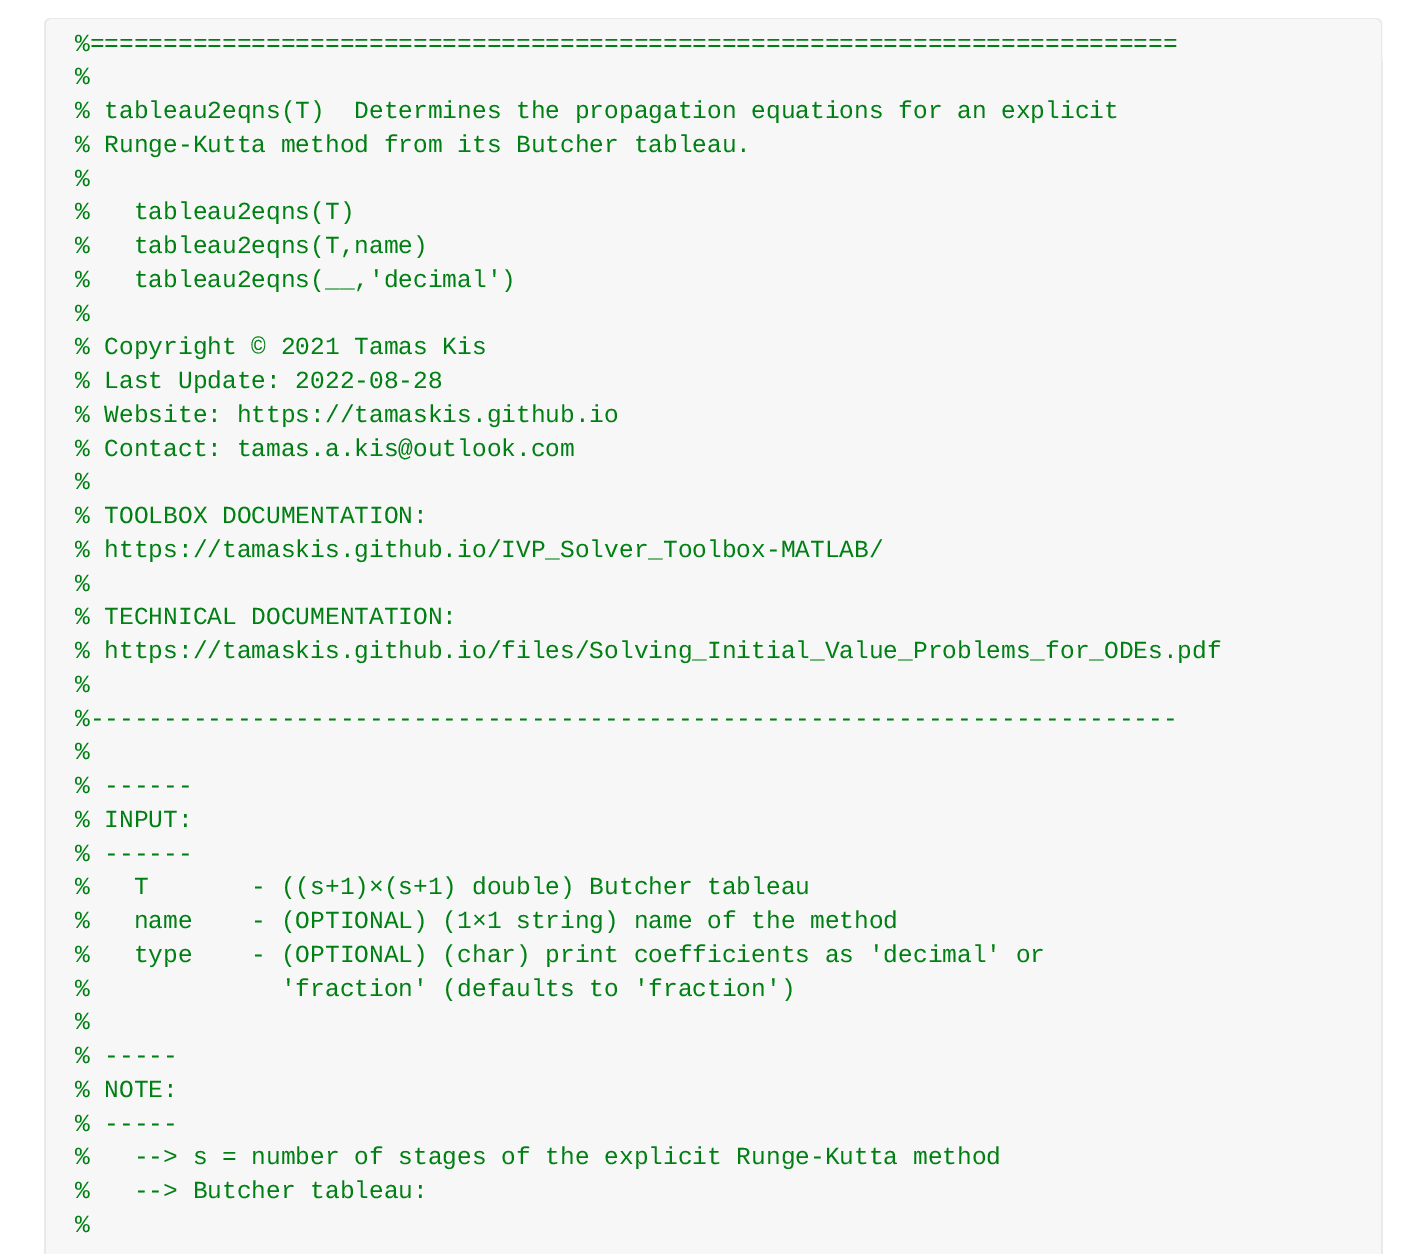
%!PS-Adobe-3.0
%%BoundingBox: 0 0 1405 1254
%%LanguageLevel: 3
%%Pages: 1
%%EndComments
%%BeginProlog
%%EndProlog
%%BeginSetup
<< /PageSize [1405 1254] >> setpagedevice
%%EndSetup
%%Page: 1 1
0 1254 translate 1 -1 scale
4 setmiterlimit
1 setgray
0 0 1405 1254 rectfill
0.969 setgray
newpath 51 18 moveto 1376 18 lineto 1380 18 1383 21 1383 25 curveto 1383 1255 lineto 44 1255 lineto 44 25 lineto 44 21 47 18 51 18 curveto closepath fill
0.914 setgray
newpath 51 18 moveto 1376 18 lineto 1379 18 1382 21 1382 24 curveto 1382 61 lineto 44 61 lineto 44 24 lineto 44 21 47 18 51 18 curveto closepath 51 19 moveto 1376 19 lineto 1378 19 1381 22 1381 24 curveto 1381 61 lineto 46 61 lineto 46 24 lineto 46 22 48 19 51 19 curveto closepath eofill
1381 61 2 1193 rectfill
44 61 2 1193 rectfill
/LiberationMono-Regular [24.5 0 0 -24.5 0 0] selectfont
0 0.502 0.075 setrgbcolor
75 51 moveto (%==========================================================================) show
75 84 moveto (%) show
75 118 moveto (% tableau2eqns\(T\)  Determines the propagation equations for an explicit) show
75 152 moveto (% Runge-Kutta method from its Butcher tableau.) show
75 186 moveto (%) show
75 219 moveto (%   tableau2eqns\(T\)) show
75 253 moveto (%   tableau2eqns\(T,name\)) show
75 287 moveto (%   tableau2eqns\(__,'decimal'\)) show
75 321 moveto (%) show
75 354 moveto (% Copyright © 2021 Tamas Kis) show
75 388 moveto (% Last Update: 2022-08-28) show
75 422 moveto (% Website: https://tamaskis.github.io) show
75 456 moveto (% Contact: tamas.a.kis@outlook.com) show
75 489 moveto (%) show
75 523 moveto (% TOOLBOX DOCUMENTATION:) show
75 557 moveto (% https://tamaskis.github.io/IVP_Solver_Toolbox-MATLAB/) show
75 591 moveto (%) show
75 624 moveto (% TECHNICAL DOCUMENTATION:) show
75 658 moveto (% https://tamaskis.github.io/files/Solving_Initial_Value_Problems_for_ODEs.pdf) show
75 692 moveto (%) show
75 726 moveto (%--------------------------------------------------------------------------) show
75 759 moveto (%) show
75 793 moveto (% ------) show
75 827 moveto (% INPUT:) show
75 861 moveto (% ------) show
75 894 moveto (%   T       - \(\(s+1\)×\(s+1\) double\) Butcher tableau) show
75 928 moveto (%   name    - \(OPTIONAL\) \(1×1 string\) name of the method) show
75 962 moveto (%   type    - \(OPTIONAL\) \(char\) print coefficients as 'decimal' or) show
75 996 moveto (%             'fraction' \(defaults to 'fraction'\)) show
75 1029 moveto (%) show
75 1063 moveto (% -----) show
75 1097 moveto (% NOTE:) show
75 1131 moveto (% -----) show
75 1164 moveto (%   --> s = number of stages of the explicit Runge-Kutta method) show
75 1198 moveto (%   --> Butcher tableau:) show
75 1232 moveto (%) show
showpage
%%EOF
